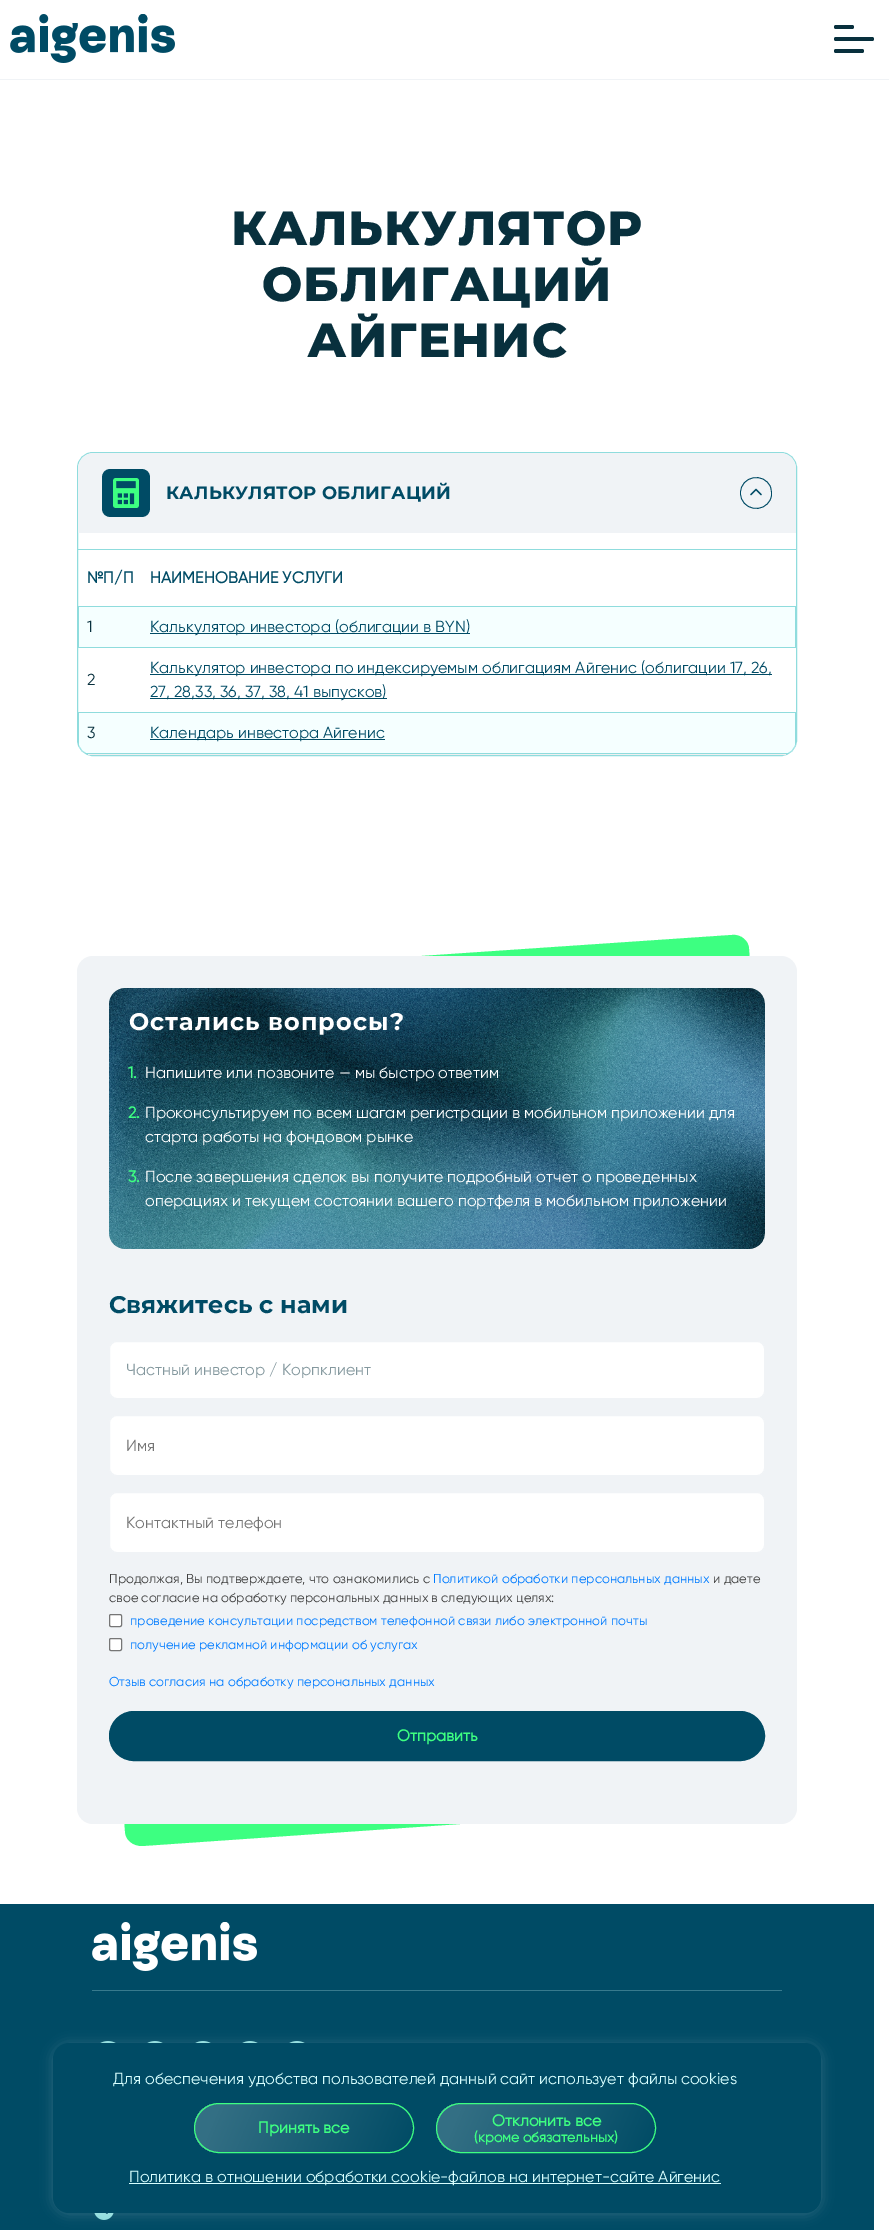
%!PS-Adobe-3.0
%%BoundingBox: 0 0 889 2230
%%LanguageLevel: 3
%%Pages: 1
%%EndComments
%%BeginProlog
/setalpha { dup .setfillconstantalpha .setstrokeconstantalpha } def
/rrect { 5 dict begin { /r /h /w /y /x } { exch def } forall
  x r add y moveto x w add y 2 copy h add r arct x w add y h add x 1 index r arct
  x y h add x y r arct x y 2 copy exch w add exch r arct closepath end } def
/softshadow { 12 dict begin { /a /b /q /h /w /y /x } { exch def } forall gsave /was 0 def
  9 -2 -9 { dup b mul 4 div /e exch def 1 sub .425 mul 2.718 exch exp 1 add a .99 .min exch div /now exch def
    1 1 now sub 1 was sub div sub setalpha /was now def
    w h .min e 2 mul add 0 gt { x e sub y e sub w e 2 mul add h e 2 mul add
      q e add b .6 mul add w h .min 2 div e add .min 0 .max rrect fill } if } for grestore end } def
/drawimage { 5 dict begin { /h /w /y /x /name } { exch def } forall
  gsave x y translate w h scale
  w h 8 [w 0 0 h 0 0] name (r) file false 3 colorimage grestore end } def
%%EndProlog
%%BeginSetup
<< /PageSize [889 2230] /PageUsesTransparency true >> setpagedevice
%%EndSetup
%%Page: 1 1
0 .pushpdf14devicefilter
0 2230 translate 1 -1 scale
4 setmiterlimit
1 setgray
0 0 889 2230 rectfill
0.941 0.953 0.965 setrgbcolor
0 79 889 1 rectfill
(images/1.raw) 10 14 165 49 drawimage
0.031 0.188 0.239 setrgbcolor
834 25 20 4 2 rrect fill
834 37 40 4 2 rrect fill
834 49 30 4 2 rrect fill
0.561 0.863 0.867 setrgbcolor
77.5 452.5 719 303 15.5 rrect stroke
gsave
78 453 718 302 15 rrect clip newpath
0.941 0.953 0.965 setrgbcolor
newpath 94 453 moveto 780 453 lineto 789 453 796 460 796 469 curveto 796 533 lineto 78 533 lineto 78 469 lineto 78 460 85 453 94 453 curveto closepath fill
grestore
(images/2.raw) 102 469 48 48 drawimage
0 0.294 0.396 setrgbcolor
0.8 setlinewidth
newpath 740.5 493 moveto 740.5 510 764 514.5 770.5 499 curveto 771.5 496.5 771.5 496 771.5 493 curveto 771.5 491.5 771 488.5 770.5 487 curveto 764 471.5 740.5 476 740.5 493 curveto closepath stroke
1.3 setlinewidth
1 setlinecap
1 setlinejoin
newpath 761 494.5 moveto 756 489.5 lineto 751 494.5 lineto stroke
gsave
78 453 718 302 15 rrect clip newpath
0.941 setgray
88 754 698 1 rectfill
grestore
0.561 0.863 0.867 setrgbcolor
78 549 718 1 rectfill
0.961 1 1 setrgbcolor
79 607 716 40 rectfill
0.561 0.863 0.867 setrgbcolor
78 606 718 1 rectfill
795 606 1 42 rectfill
78 647 718 1 rectfill
78 606 1 42 rectfill
0 0.294 0.396 setrgbcolor
150 633 320 1 rectfill
150 674 622 1 rectfill
150 698 237 1 rectfill
gsave
78 453 718 302 15 rrect clip newpath
0.25 setalpha
0.847 1 1 setrgbcolor
79 713 717 41 rectfill
grestore
0.561 0.863 0.867 setrgbcolor
78 712 718 1 rectfill
gsave
78 453 718 302 15 rrect clip newpath
795 712 1 33 rectfill
78 753 718 1 rectfill
78 712 1 33 rectfill
grestore
0 0.294 0.396 setrgbcolor
150 739 235 1 rectfill
gsave
77 876 720 1028 rectclip
0.239 1 0.506 setrgbcolor
newpath 82 979 moveto 732 935 lineto 741 934 749 941 749 949 curveto 807 1784 lineto 808 1793 801 1800 792 1801 curveto 142 1846 lineto 133 1846 125 1840 125 1831 curveto 67 997 lineto 66 988 73 980 82 979 curveto closepath fill
grestore
0.941 0.953 0.965 setrgbcolor
77 956 720 868 16 rrect fill
(images/3.raw) 109 988 656 261 drawimage
1 setgray
109.5 1341.5 655 57 7.5 rrect gsave fill grestore
0.941 0.953 0.965 setrgbcolor
1 setlinewidth
0 setlinecap
0 setlinejoin
stroke
1 setgray
109.5 1415.5 655 60 7.5 rrect gsave fill grestore
0.941 0.953 0.965 setrgbcolor
stroke
1 setgray
109.5 1492.5 655 60 7.5 rrect gsave fill grestore
0.941 0.953 0.965 setrgbcolor
stroke
1 setgray
109.5 1614.5 12 12 1.5 rrect gsave fill grestore
0.463 setgray
stroke
1 setgray
109.5 1638.5 12 12 1.5 rrect gsave fill grestore
0.463 setgray
stroke
0 0.294 0.396 setrgbcolor
109.5 1711.5 655 49 24.5 rrect gsave fill grestore
stroke
0 1904 874 326 rectfill
(images/5.raw) 100 2041 16 2 drawimage
(images/5.raw) 147 2041 16 2 drawimage
(images/5.raw) 195 2041 16 2 drawimage
(images/5.raw) 242 2041 16 2 drawimage
(images/5.raw) 289 2041 16 2 drawimage
(images/6.raw) 94 2213 20 7 drawimage
1 setgray
53 2044 768 170 16 6 0.17 softshadow
0 0.294 0.396 setrgbcolor
53 2043 768 170 16 rrect fill
gsave
194 2103 220 50 25 rrect clip newpath
gsave newpath 195 2104 moveto 413 2104 lineto 413 2152 lineto 195 2152 lineto closepath clip newpath
<< /ShadingType 2 /ColorSpace /DeviceRGB /Coords [203 2086 406 2170] /Extend [true true] /Function << /FunctionType 3 /Domain [0 1] /Functions [<< /FunctionType 2 /Domain [0 1] /C0 [0.2 0.435 0.518] /C1 [0.2 0.435 0.518] /N 1 >> << /FunctionType 2 /Domain [0 1] /C0 [0.2 0.435 0.518] /C1 [0 0.294 0.396] /N 1 >>] /Bounds [0.1] /Encode [0 1 0 1] >> >> shfill grestore
grestore
0.239 1 0.506 setrgbcolor
194.5 2103.5 219 49 24.5 rrect stroke
gsave
436 2103 220 50 25 rrect clip newpath
gsave newpath 437 2104 moveto 655 2104 lineto 655 2152 lineto 437 2152 lineto closepath clip newpath
<< /ShadingType 2 /ColorSpace /DeviceRGB /Coords [445 2086 648 2170] /Extend [true true] /Function << /FunctionType 3 /Domain [0 1] /Functions [<< /FunctionType 2 /Domain [0 1] /C0 [0.2 0.435 0.518] /C1 [0.2 0.435 0.518] /N 1 >> << /FunctionType 2 /Domain [0 1] /C0 [0.2 0.435 0.518] /C1 [0 0.294 0.396] /N 1 >>] /Bounds [0.1] /Encode [0 1 0 1] >> >> shfill grestore
grestore
436.5 2103.5 219 49 24.5 rrect stroke
0.847 1 1 setrgbcolor
129 2183 592 1 rectfill
0.22 0.478 0.553 setrgbcolor
92 1990 690 1 rectfill
(images/4.raw) 92 1922 165 49 drawimage
/Montserrat-ExtraBold [48 0 0 -48 0 0] selectfont
0.031 0.188 0.239 setrgbcolor
231 245 moveto 1 0 (КАЛЬКУЛЯТОР) ashow
262 301 moveto 1 0 (ОБЛИГАЦИЙ) ashow
307 357 moveto 1 0 (АЙГЕНИС) ashow
/Montserrat-Bold [18 0 0 -18 0 0] selectfont
0 0.294 0.396 setrgbcolor
166 499 moveto 0.2 0 (КАЛЬКУЛЯТОР ОБЛИГАЦИЙ) ashow
/Gilroy-Bold [16 0 0 -16 0 0] selectfont
87 583 moveto 0.1 0 (№П/П) ashow
150 583 moveto 0.1 0 (НАИМЕНОВАНИЕ УСЛУГИ) ashow
/Gilroy-Regular [16 0 0 -16 0 0] selectfont
0.031 0.188 0.239 setrgbcolor
87 632 moveto (1) show
0 0.294 0.396 setrgbcolor
150 632 moveto (Калькулятор инвестора \(облигации в BYN\)) show
0.031 0.188 0.239 setrgbcolor
87 685 moveto (2) show
0 0.294 0.396 setrgbcolor
150 673 moveto (Калькулятор инвестора по индексируемым облигациям Айгенис \(облигации 17, 26,) show
150 697 moveto (27, 28,33, 36, 37, 38, 41 выпусков\)) show
0.031 0.188 0.239 setrgbcolor
87 738 moveto (3) show
0 0.294 0.396 setrgbcolor
150 738 moveto (Календарь инвестора Айгенис) show
/Montserrat-Bold [24 0 0 -24 0 0] selectfont
1 setgray
129 1030 moveto 1 0 (Остались вопросы?) ashow
/Gilroy-Bold [16 0 0 -16 0 0] selectfont
0.239 1 0.506 setrgbcolor
128 1078 moveto (1.) show
/Gilroy-Regular [16 0 0 -16 0 0] selectfont
1 setgray
145 1078 moveto (Напишите или позвоните — мы быстро ответим) show
/Gilroy-Bold [16 0 0 -16 0 0] selectfont
0.239 1 0.506 setrgbcolor
128 1118 moveto (2.) show
/Gilroy-Regular [16 0 0 -16 0 0] selectfont
1 setgray
145 1118 moveto (Проконсультируем по всем шагам регистрации в мобильном приложении для) show
145 1142 moveto (старта работы на фондовом рынке) show
/Gilroy-Bold [16 0 0 -16 0 0] selectfont
0.239 1 0.506 setrgbcolor
128 1182 moveto (3.) show
/Gilroy-Regular [16 0 0 -16 0 0] selectfont
1 setgray
145 1182 moveto (После завершения сделок вы получите подробный отчет о проведенных) show
145 1206 moveto (операциях и текущем состоянии вашего портфеля в мобильном приложении) show
/Montserrat-Bold [24 0 0 -24 0 0] selectfont
0 0.294 0.396 setrgbcolor
109 1313 moveto (Свяжитесь с нами) show
gsave
126 1362 622 16 rectclip
/Gilroy-Regular [16 0 0 -16 0 0] selectfont
0.518 0.596 0.62 setrgbcolor
126 1375 moveto (Частный инвестор / Корпклиент) show
grestore
/Gilroy-Regular [16 0 0 -16 0 0] selectfont
0.459 setgray
126 1451 moveto (Имя) show
126 1528 moveto (Контактный телефон) show
/Gilroy-Regular [13 0 0 -13 0 0] selectfont
0.251 setgray
109 1583 moveto (Продолжая, Вы подтверждаете, что ознакомились с) show
0 0.482 1 setrgbcolor
433 1583 moveto (Политикой обработки персональных данных) show
0.251 setgray
713 1583 moveto (и даете) show
109 1602 moveto (свое согласие на обработку персональных данных в следующих целях:) show
0 0.482 1 setrgbcolor
130 1625 moveto (проведение консультации посредством телефонной связи либо электронной почты) show
130 1649 moveto (получение рекламной информации об услугах) show
109 1686 moveto (Отзыв согласия на обработку персональных данных) show
/Gilroy-Bold [16 0 0 -16 0 0] selectfont
0.239 1 0.506 setrgbcolor
397 1741 moveto (Отправить) show
/Gilroy-Regular [16 0 0 -16 0 0] selectfont
0.847 1 1 setrgbcolor
113 2084 moveto (Для обеспечения удобства пользователей данный сайт использует файлы cookies) show
/Gilroy-Bold [16 0 0 -16 0 0] selectfont
0.239 1 0.506 setrgbcolor
258 2133 moveto (Принять все) show
492 2126 moveto (Отклонить все) show
/Gilroy-Bold [14 0 0 -14 0 0] selectfont
474 2142 moveto (\(кроме обязательных\)) show
/Gilroy-Regular [16 0 0 -16 0 0] selectfont
0.847 1 1 setrgbcolor
129 2182 moveto (Политика в отношении обработки cookie-файлов на интернет-сайте Айгенис) show
.poppdf14devicefilter showpage
%%EOF
